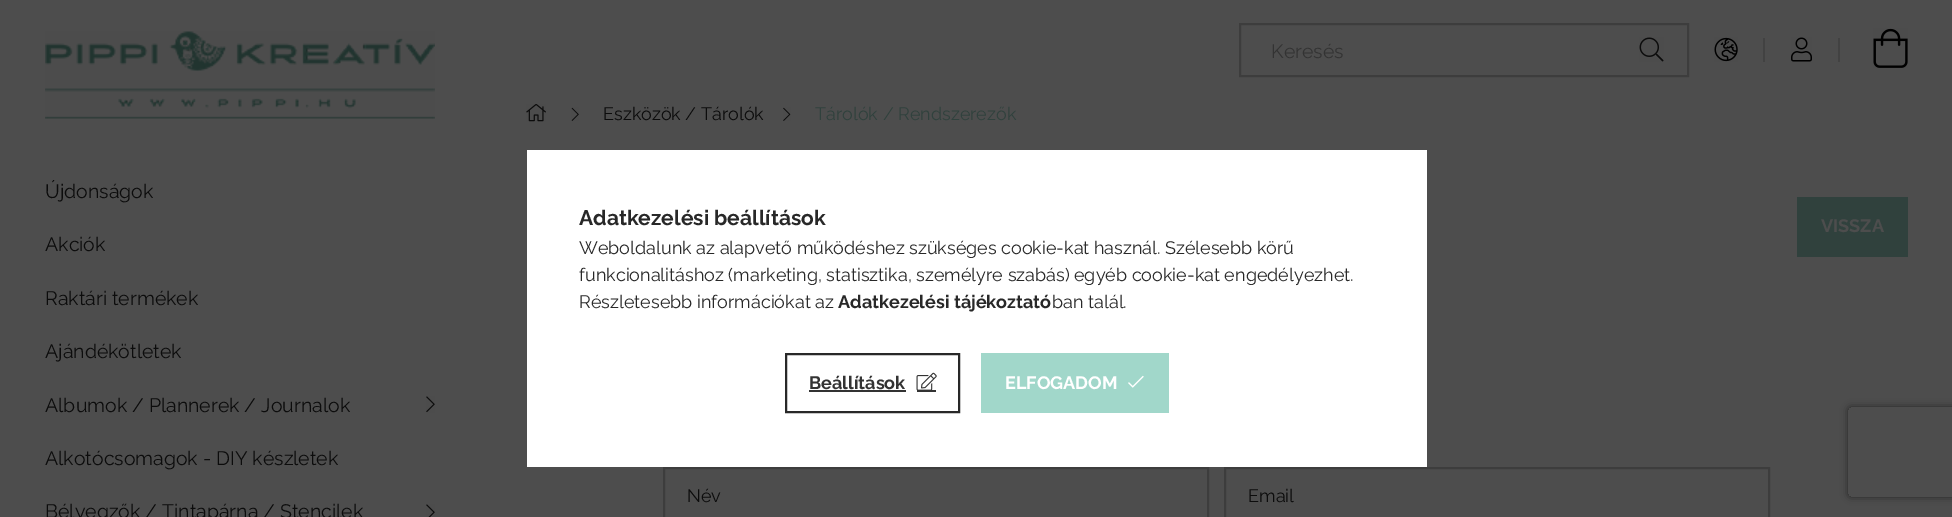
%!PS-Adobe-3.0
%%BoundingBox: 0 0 1952 517
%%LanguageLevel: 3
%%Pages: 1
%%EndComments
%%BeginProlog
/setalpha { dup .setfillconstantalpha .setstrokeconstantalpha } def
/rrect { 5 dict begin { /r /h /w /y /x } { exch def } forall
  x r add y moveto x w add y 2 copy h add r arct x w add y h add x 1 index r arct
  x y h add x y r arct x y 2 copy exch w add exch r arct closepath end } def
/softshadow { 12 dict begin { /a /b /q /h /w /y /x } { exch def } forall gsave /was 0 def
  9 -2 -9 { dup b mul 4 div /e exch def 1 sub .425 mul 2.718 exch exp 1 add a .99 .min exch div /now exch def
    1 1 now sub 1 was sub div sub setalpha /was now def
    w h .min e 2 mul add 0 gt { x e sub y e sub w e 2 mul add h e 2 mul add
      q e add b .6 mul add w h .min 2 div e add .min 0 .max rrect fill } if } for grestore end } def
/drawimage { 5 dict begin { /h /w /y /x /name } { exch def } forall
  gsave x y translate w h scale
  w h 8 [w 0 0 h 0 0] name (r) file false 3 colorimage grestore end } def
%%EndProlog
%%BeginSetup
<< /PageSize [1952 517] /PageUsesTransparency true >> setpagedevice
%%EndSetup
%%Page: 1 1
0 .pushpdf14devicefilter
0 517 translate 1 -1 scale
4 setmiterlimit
0.302 setgray
0 0 1952 517 rectfill
(images/1.raw) 45 31 390 88 drawimage
(images/2.raw) 426 396 9 17 drawimage
(images/3.raw) 426 504 9 13 drawimage
0.239 setgray
2 setlinewidth
1240 24 448 52 rectstroke
(images/4.raw) 1639 37 25 25 drawimage
(images/5.raw) 1714 37 24 25 drawimage
0.259 setgray
1763 38 2 24 rectfill
(images/6.raw) 1791 37 21 25 drawimage
1838 38 2 24 rectfill
(images/7.raw) 1873 28 35 40 drawimage
(images/8.raw) 526 104 20 18 drawimage
(images/9.raw) 571 107 8 14 drawimage
(images/10.raw) 783 107 8 14 drawimage
0.188 0.255 0.239 setrgbcolor
1797 197 111 60 rectfill
0.239 setgray
664 468 544 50 rectstroke
1225 468 544 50 rectstroke
gsave
newpath 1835 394 moveto 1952 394 lineto 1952 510 lineto 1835 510 lineto closepath 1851 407 moveto 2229 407 lineto 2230.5 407 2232 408.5 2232 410 curveto 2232 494 lineto 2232 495.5 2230.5 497 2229 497 curveto 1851 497 lineto 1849.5 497 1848 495.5 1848 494 curveto 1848 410 lineto 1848 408.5 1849.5 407 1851 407 curveto closepath eoclip newpath
0.149 setgray
1848 407 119 90 3 4 1 softshadow
grestore
1 setgray
527 150 900 317 rectfill
0.157 setgray
786 354 173 58 rectstroke
0.2 setgray
809 390 97 2 rectfill
917 390 19 2 rectfill
(images/11.raw) 916 372 21 19 drawimage
0.631 0.843 0.792 setrgbcolor
981 353 188 60 rectfill
(images/12.raw) 1128 375 16 13 drawimage
/Raleway-Regular [19.5 0 0 -19.5 0 0] selectfont
0.047 setgray
45 198 moveto (Újdonságok) show
45 251 moveto (Akciók) show
45 305 moveto (Raktári termékek) show
45 358 moveto (Ajándékötletek) show
45 412 moveto (Albumok / Plannerek / Journalok) show
45 465 moveto (Alkotócsomagok - DIY készletek) show
45 518 moveto (Bélyegzők / Tintapárna / Stencilek) show
0.2 setgray
1271 58 moveto (Keresés) show
/Raleway-Regular [18 0 0 -18 0 0] selectfont
0.047 setgray
603 120 moveto (Eszközök / Tárolók) show
0.188 0.255 0.239 setrgbcolor
815 120 moveto (Tárolók / Rendszerezők) show
/Raleway-Bold [18 0 0 -18 0 0] selectfont
0.302 setgray
1821 232 moveto (VISSZA) show
/Raleway-Regular [18 0 0 -18 0 0] selectfont
0.047 setgray
687 502 moveto (Név) show
1248 502 moveto (Email) show
/Raleway-Bold [21 0 0 -21 0 0] selectfont
0.157 setgray
579 225 moveto (Adatkezelési beállítások) show
/Raleway-Regular [18 0 0 -18 0 0] selectfont
579 254 moveto (Weboldalunk az alapvető működéshez szükséges cookie-kat használ. Szélesebb körű) show
579 281 moveto (funkcionalitáshoz \(marketing, statisztika, személyre szabás\) egyéb cookie-kat engedélyezhet.) show
579 308 moveto (Részletesebb információkat az) show
/Raleway-Bold [18 0 0 -18 0 0] selectfont
838 308 moveto (Adatkezelési tájékoztató) show
/Raleway-Regular [18 0 0 -18 0 0] selectfont
1052 308 moveto (ban talál.) show
/Raleway-Bold [18 0 0 -18 0 0] selectfont
0.2 setgray
809 389 moveto (Beállítások) show
1 setgray
1005 389 moveto (ELFOGADOM) show
.poppdf14devicefilter showpage
%%EOF
